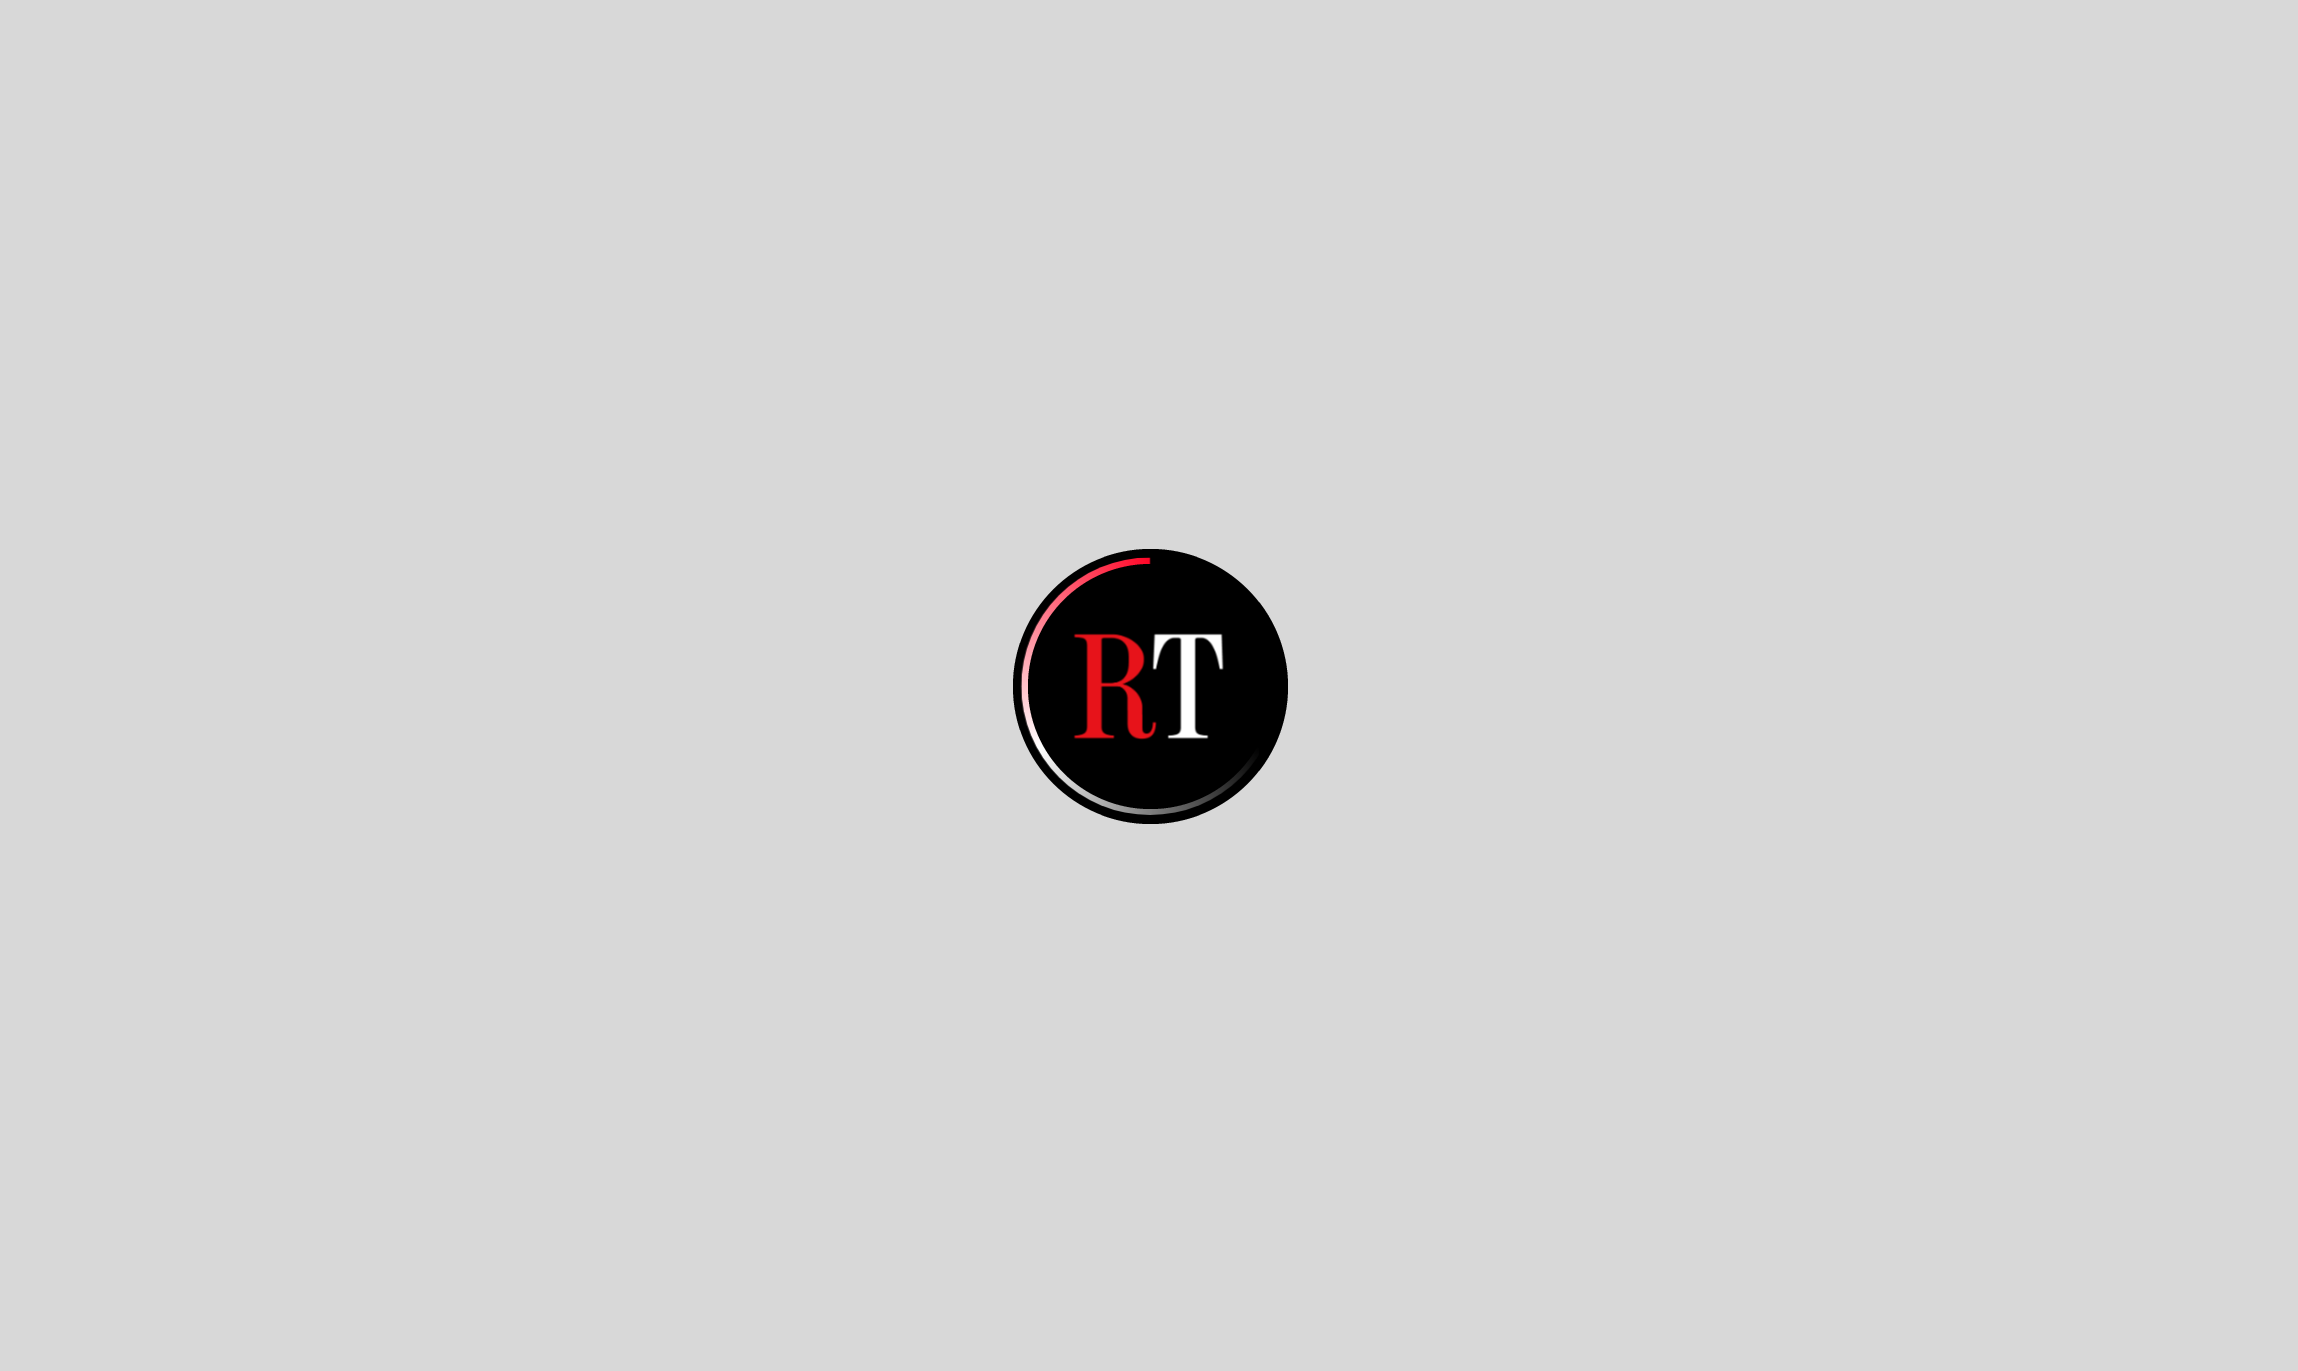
%!PS-Adobe-3.0
%%BoundingBox: 0 0 2298 1371
%%LanguageLevel: 3
%%Pages: 1
%%EndComments
%%BeginProlog
/drawimage { 5 dict begin { /h /w /y /x /name } { exch def } forall
  gsave x y translate w h scale
  w h 8 [w 0 0 h 0 0] name (r) file false 3 colorimage grestore end } def
%%EndProlog
%%BeginSetup
<< /PageSize [2298 1371] >> setpagedevice
%%EndSetup
%%Page: 1 1
0 1371 translate 1 -1 scale
4 setmiterlimit
0.847 setgray
0 0 2298 1371 rectfill
0 setgray
newpath 1150.5 686.5 137.5 0 360 arc closepath fill
(images/1.raw) 1020 557 239 258 drawimage
newpath 1150.5 686.5 122.5 0 360 arc closepath fill
(images/2.raw) 1073 633 151 107 drawimage
showpage
%%EOF
